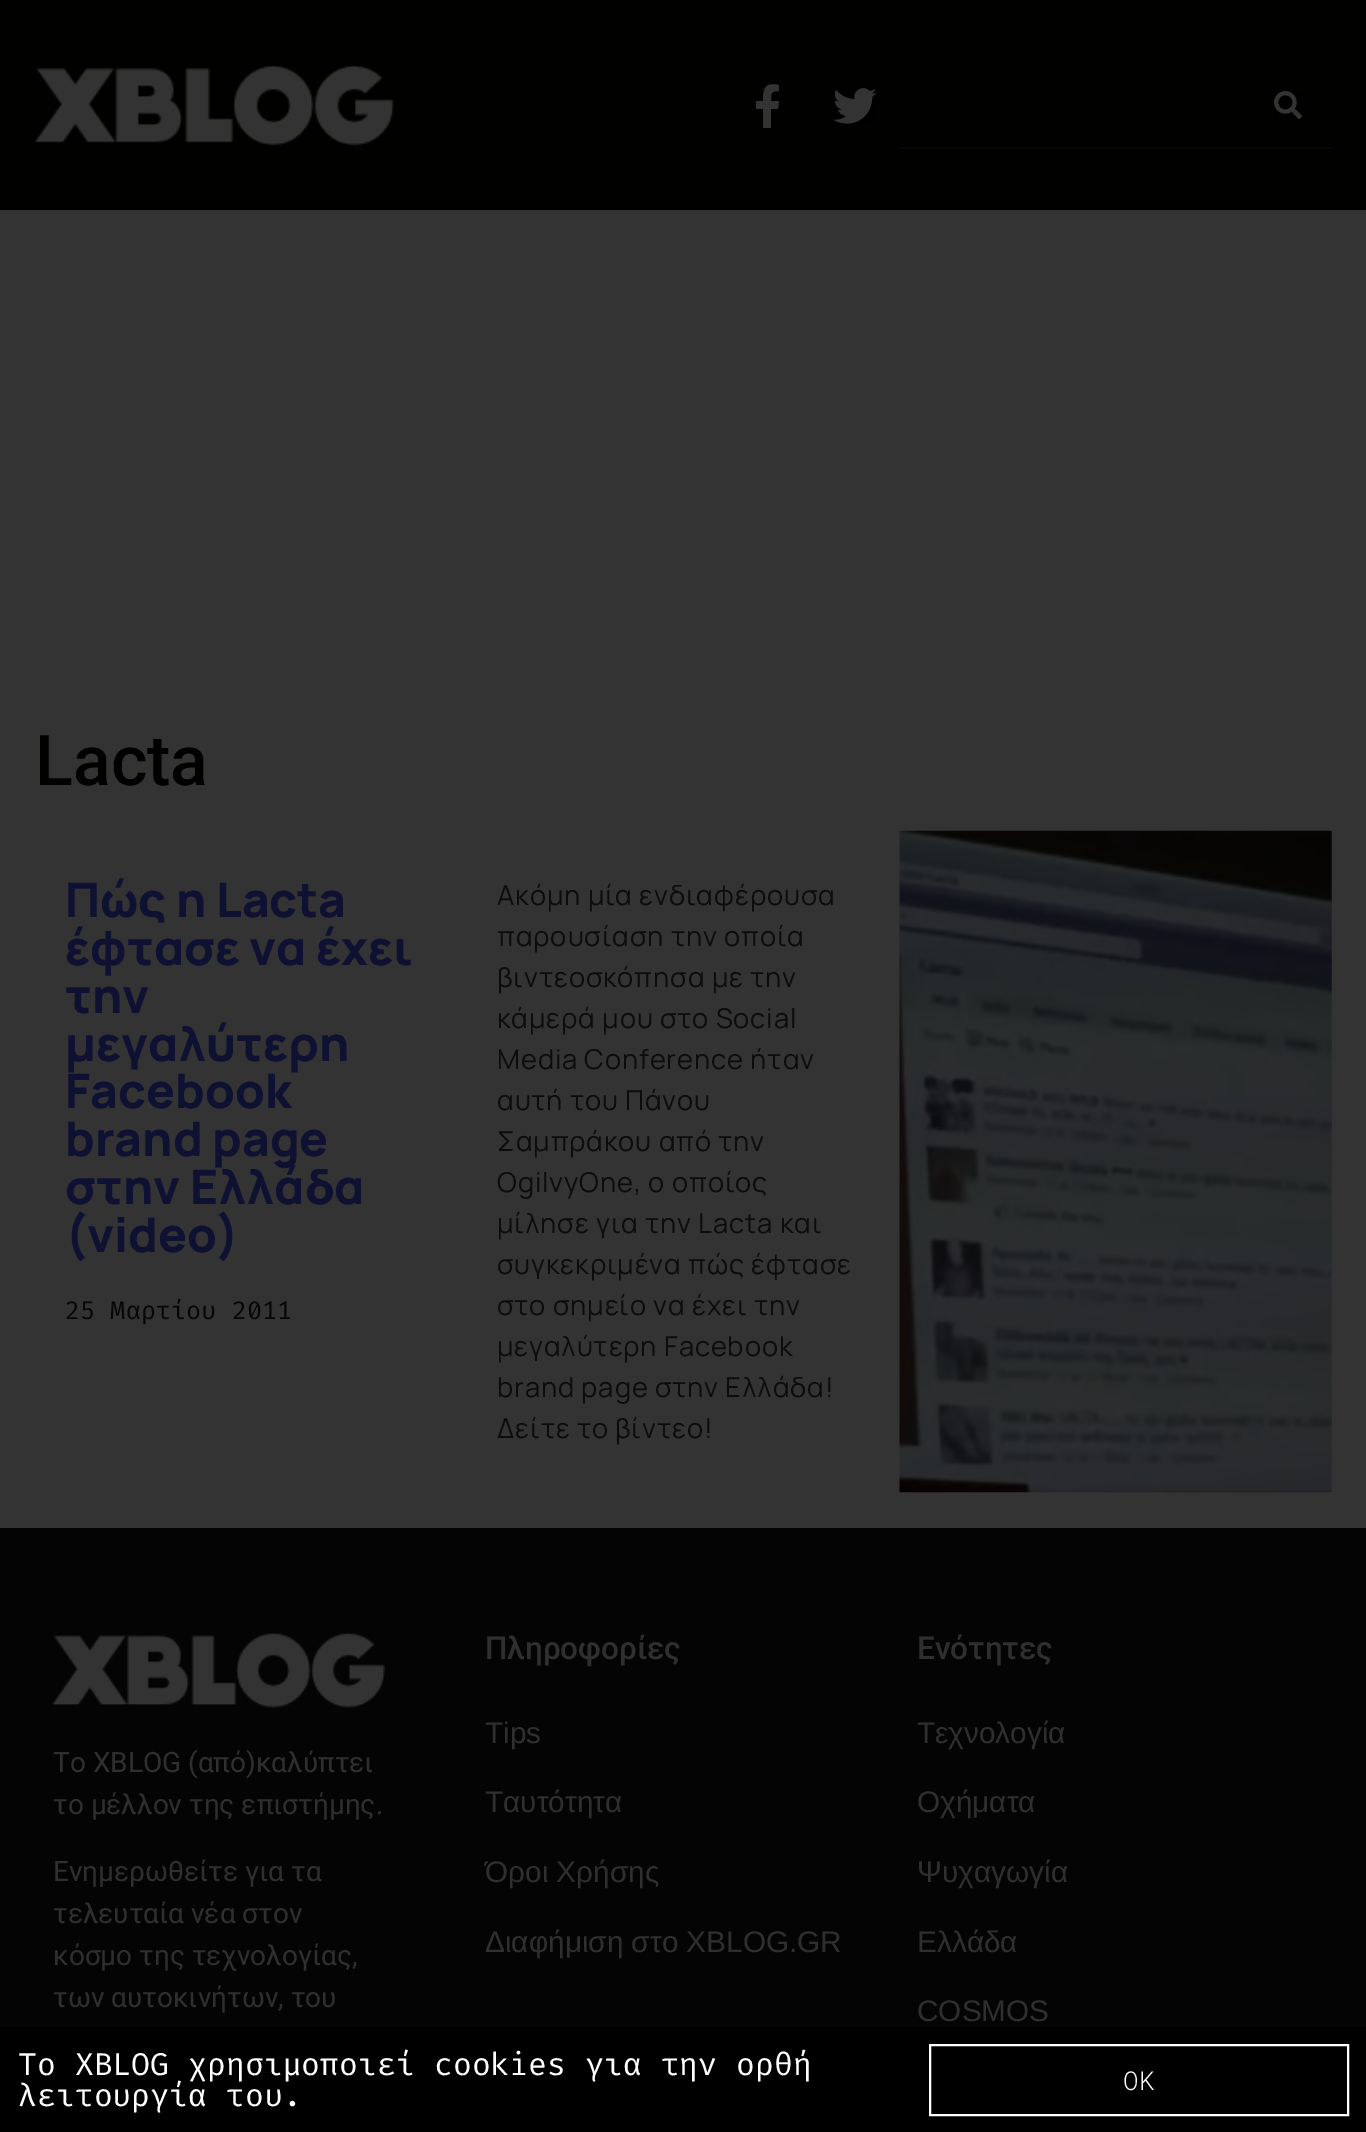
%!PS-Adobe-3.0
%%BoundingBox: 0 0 1366 2132
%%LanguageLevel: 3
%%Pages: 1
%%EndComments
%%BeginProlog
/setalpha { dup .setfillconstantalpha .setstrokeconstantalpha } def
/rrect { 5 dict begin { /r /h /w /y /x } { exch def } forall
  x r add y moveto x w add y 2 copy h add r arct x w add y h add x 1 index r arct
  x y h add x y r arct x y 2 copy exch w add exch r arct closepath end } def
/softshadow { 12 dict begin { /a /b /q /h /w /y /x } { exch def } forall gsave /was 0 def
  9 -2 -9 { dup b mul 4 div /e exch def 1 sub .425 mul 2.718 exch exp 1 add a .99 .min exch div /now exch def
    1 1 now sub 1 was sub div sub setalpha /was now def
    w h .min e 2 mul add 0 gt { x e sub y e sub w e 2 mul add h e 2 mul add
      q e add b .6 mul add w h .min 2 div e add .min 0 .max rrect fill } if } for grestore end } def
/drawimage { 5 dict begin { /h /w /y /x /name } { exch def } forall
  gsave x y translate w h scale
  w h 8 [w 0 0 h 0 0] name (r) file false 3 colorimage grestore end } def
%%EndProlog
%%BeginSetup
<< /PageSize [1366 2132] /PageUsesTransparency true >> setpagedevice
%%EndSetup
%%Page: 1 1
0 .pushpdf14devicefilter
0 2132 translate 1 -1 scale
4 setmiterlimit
0.2 setgray
0 0 1366 2132 rectfill
0.004 0.004 0 setrgbcolor
0 0 1366 210 rectfill
(images/1.raw) 35 65 359 81 drawimage
0.2 setgray
newpath 778 109 moveto 779 101 lineto 771 101 lineto 771 93 771 91 779 91 curveto 779 85 lineto 765 82 763 88 763 101 curveto 756 101 lineto 756 109 lineto 763 109 lineto 763 128 lineto 771 128 lineto 771 109 lineto closepath fill
(images/2.raw) 833 88 44 36 drawimage
0.024 setgray
900 147 432 2 rectfill
(images/3.raw) 1274 91 28 28 drawimage
(images/4.raw) 899 830 433 663 drawimage
0.016 setgray
0 1528 1366 499 rectfill
(images/5.raw) 52 1632 333 76 drawimage
0 setgray
-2 2035 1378 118 0 20 0.2 softshadow
0 2027 1366 105 rectfill
1 setgray
2 setlinewidth
930 2045 418 70 rectstroke
/Roboto-Medium [70 0 0 -70 0 0] selectfont
0.004 0.004 0 setrgbcolor
35 785 moveto (Lacta) show
/Manrope-ExtraBold [47.75 0 0 -47.75 0 0] selectfont
0.055 0.067 0.192 setrgbcolor
65 917 moveto (Πώς η Lacta) show
65 965 moveto (έφτασε να έχει) show
65 1013 moveto (την) show
65 1061 moveto (μεγαλύτερη) show
65 1108 moveto (Facebook) show
65 1156 moveto (brand page) show
65 1204 moveto (στην Ελλάδα) show
65 1252 moveto (\(video\)) show
/FiraCode-Regular [25.25 0 0 -25.25 0 0] selectfont
0.024 setgray
65 1319 moveto (25 Μαρτίου 2011) show
/Manrope-Regular [27.3 0 0 -27.3 0 0] selectfont
0.047 setgray
497 905 moveto 0.9 0 (Ακόμη μία ενδιαφέρουσα) ashow
497 946 moveto 0.9 0 (παρουσίαση την οποία) ashow
497 987 moveto 0.9 0 (βιντεοσκόπησα με την) ashow
497 1028 moveto 0.9 0 (κάμερά μου στο Social) ashow
497 1069 moveto 0.9 0 (Media Conference ήταν) ashow
497 1110 moveto 0.9 0 (αυτή του Πάνου) ashow
497 1151 moveto 0.9 0 (Σαμπράκου από την) ashow
497 1192 moveto 0.9 0 (OgilvyOne, ο οποίος) ashow
497 1233 moveto 0.9 0 (μίλησε για την Lacta και) ashow
497 1274 moveto 0.9 0 (συγκεκριμένα πώς έφτασε) ashow
497 1315 moveto 0.9 0 (στο σημείο να έχει την) ashow
497 1356 moveto 0.9 0 (μεγαλύτερη Facebook) ashow
497 1397 moveto 0.9 0 (brand page στην Ελλάδα!) ashow
497 1438 moveto 0.9 0 (Δείτε το βίντεο!) ashow
/Roboto-Regular [28 0 0 -28 0 0] selectfont
0.184 setgray
53 1772 moveto (Το XBLOG \(από\)καλύπτει) show
53 1814 moveto (το μέλλον της επιστήμης.) show
53 1881 moveto (Ενημερωθείτε για τα) show
53 1923 moveto (τελευταία νέα στον) show
53 1965 moveto (κόσμο της τεχνολογίας,) show
53 2007 moveto (των αυτοκινήτων, του) show
/Roboto-Medium [31.5 0 0 -31.5 0 0] selectfont
485 1659 moveto (Πληροφορίες) show
/LiberationSans-Regular [29.75 0 0 -29.75 0 0] selectfont
485 1743 moveto (Tips) show
485 1812 moveto (Ταυτότητα) show
485 1882 moveto (Όροι Χρήσης) show
485 1952 moveto (Διαφήμιση στο XBLOG.GR) show
/Roboto-Medium [31.5 0 0 -31.5 0 0] selectfont
917 1659 moveto (Ενότητες) show
/LiberationSans-Regular [29.75 0 0 -29.75 0 0] selectfont
917 1743 moveto (Τεχνολογία) show
917 1812 moveto (Οχήματα) show
917 1882 moveto (Ψυχαγωγία) show
917 1952 moveto (Ελλάδα) show
917 2021 moveto (COSMOS) show
/FiraCode-Regular [31.5 0 0 -31.5 0 0] selectfont
1 setgray
18 2075 moveto (Το XBLOG χρησιμοποιεί cookies για την ορθή) show
18 2106 moveto (λειτουργία του.) show
/RobotoMono-Light [26 0 0 -26 0 0] selectfont
1123 2090 moveto (OK) show
.poppdf14devicefilter showpage
%%EOF
